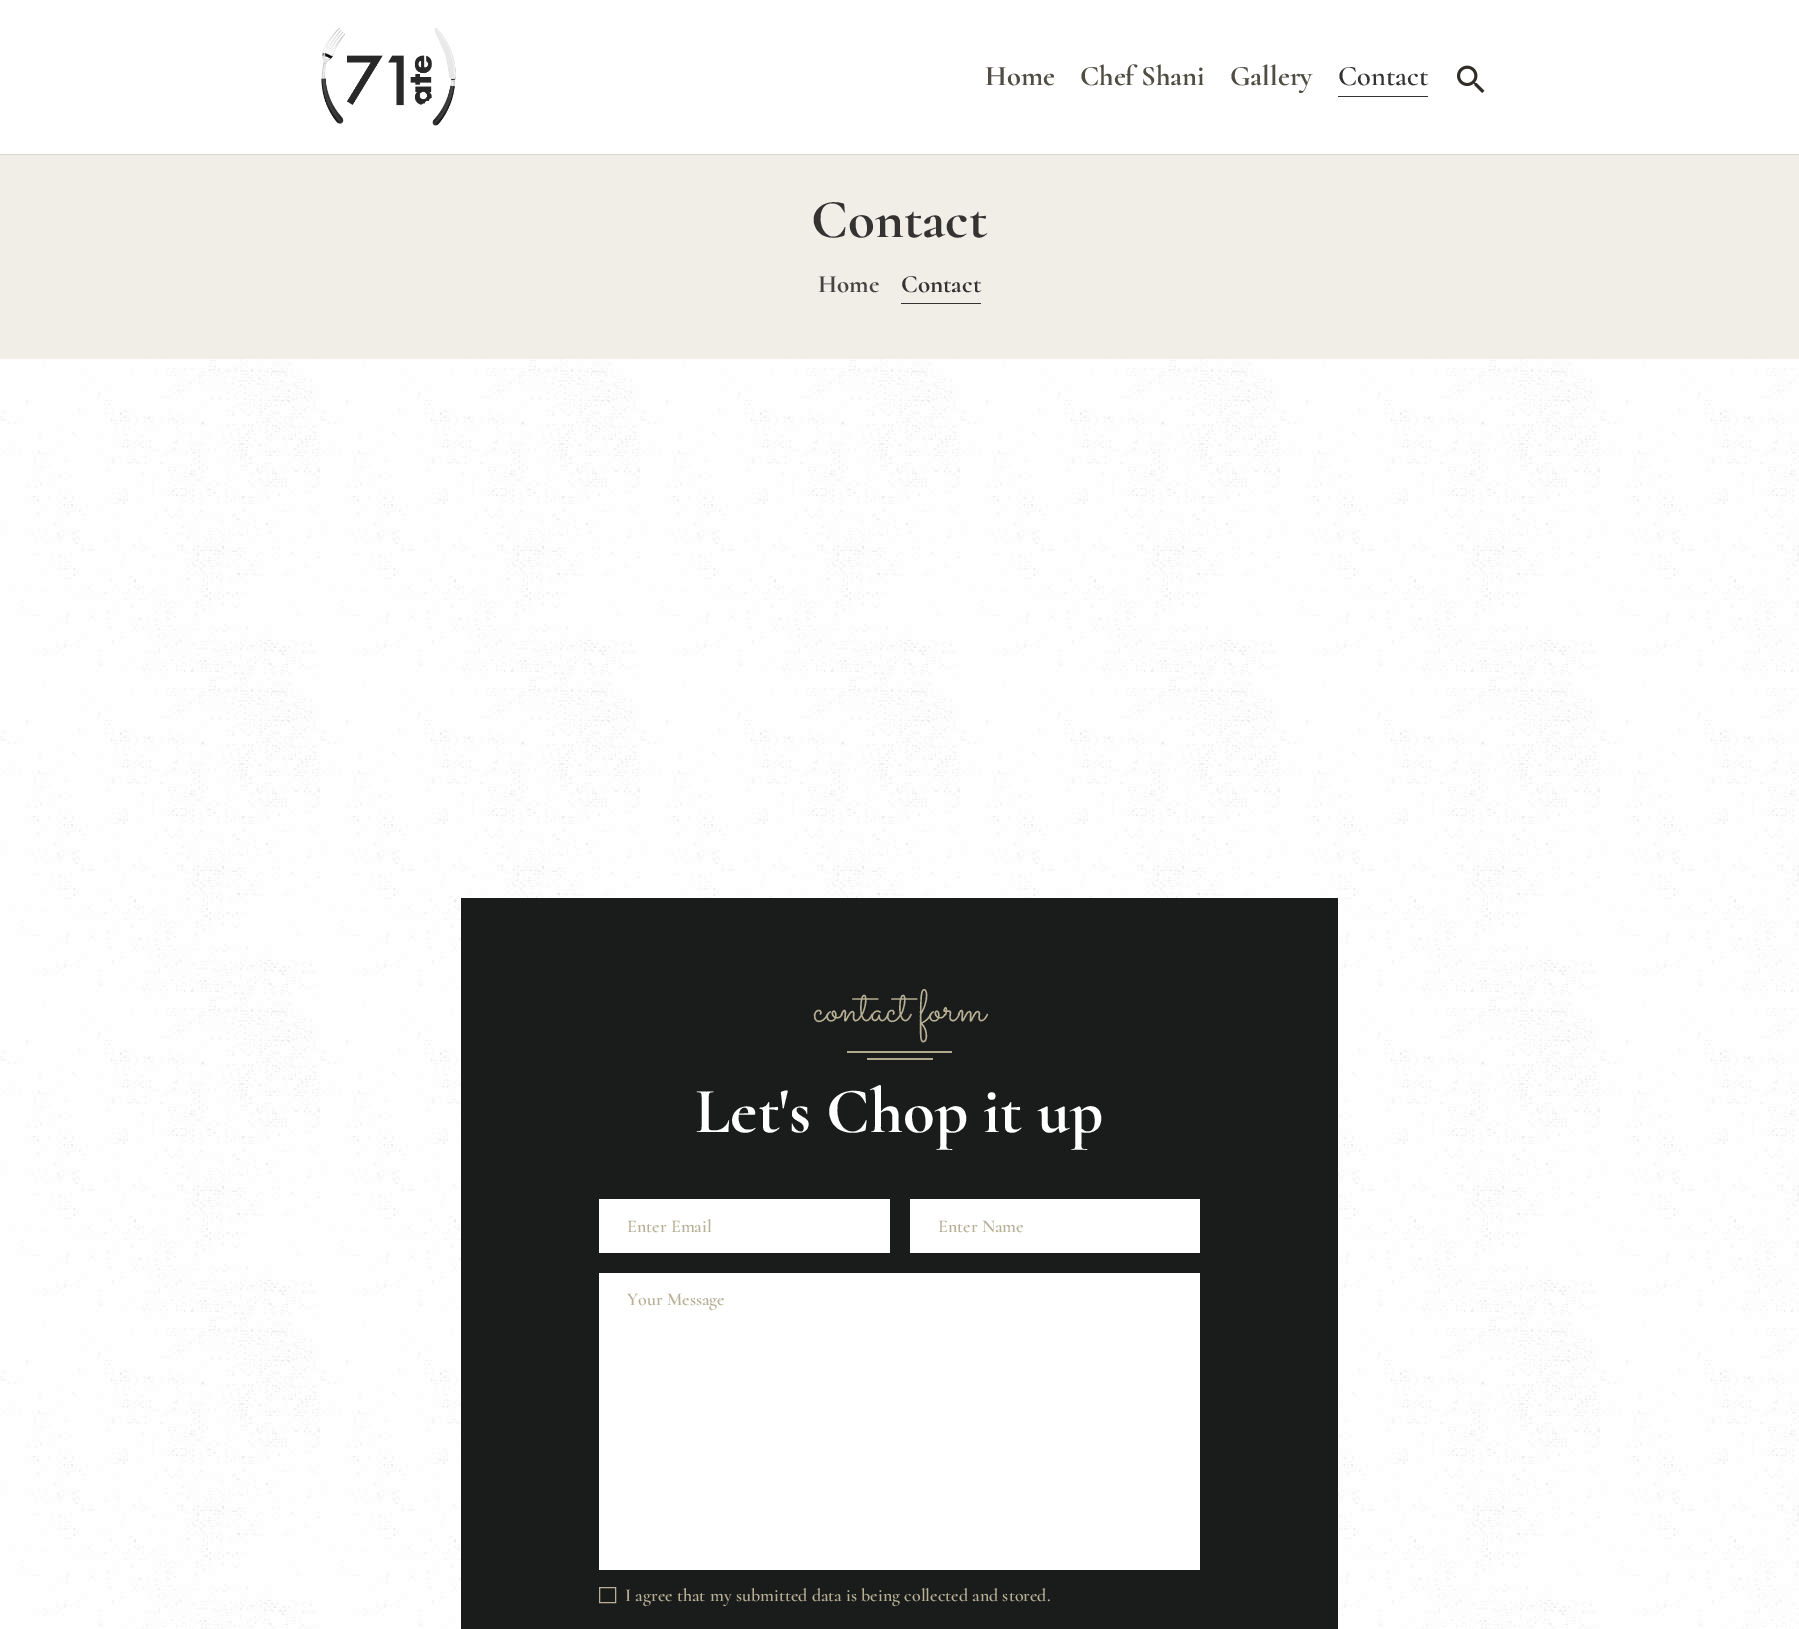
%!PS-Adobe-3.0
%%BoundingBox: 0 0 1799 1629
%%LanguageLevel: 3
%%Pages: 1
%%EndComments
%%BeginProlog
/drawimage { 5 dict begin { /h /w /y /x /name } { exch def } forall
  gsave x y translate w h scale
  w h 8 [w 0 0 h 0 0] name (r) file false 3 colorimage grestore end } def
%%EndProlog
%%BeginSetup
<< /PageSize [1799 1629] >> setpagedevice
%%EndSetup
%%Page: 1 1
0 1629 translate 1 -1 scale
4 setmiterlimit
1 setgray
0 0 1799 1629 rectfill
(images/1.raw) 0 359 1799 1270 drawimage
0.839 0.835 0.808 setrgbcolor
0 154 1799 1 rectfill
(images/2.raw) 321 28 135 98 drawimage
0.204 0.2 0.196 setrgbcolor
1338 96 90 1 rectfill
(images/3.raw) 1457 65 28 28 drawimage
0.945 0.933 0.91 setrgbcolor
0 155 1799 204 rectfill
0.204 0.2 0.196 setrgbcolor
901 303 80 1 rectfill
0.102 0.11 0.11 setrgbcolor
461 898 877 731 rectfill
0.686 0.663 0.561 setrgbcolor
847 1051 105 2 rectfill
867 1058 66 2 rectfill
1 setgray
599 1199 291 54 rectfill
910 1199 290 54 rectfill
599 1273 601 297 rectfill
0.718 0.69 0.584 setrgbcolor
599.5 1587.5 16 15 rectstroke
/Cormorant-Bold [28.5 0 0 -28.5 0 0] selectfont
0.314 0.302 0.267 setrgbcolor
985 85 moveto (Home) show
1080 85 moveto (Chef Shani) show
1230 85 moveto (Gallery) show
/Cormorant-SemiBold [28.5 0 0 -28.5 0 0] selectfont
0.204 0.2 0.196 setrgbcolor
1338 85 moveto (Contact) show
/Cormorant-Bold [55 0 0 -55 0 0] selectfont
811 237 moveto (Contact) show
/Cormorant-Bold [25 0 0 -25 0 0] selectfont
0.275 0.263 0.255 setrgbcolor
818 292 moveto (Home) show
0.204 0.2 0.196 setrgbcolor
901 292 moveto (Contact) show
/Sacramento-Regular [45 0 0 -45 0 0] selectfont
0.718 0.69 0.584 setrgbcolor
813 1021 moveto (contact form) show
/Cormorant-Bold [65 0 0 -65 0 0] selectfont
1 setgray
695 1132 moveto (Let's Chop it up) show
/Cormorant-SemiBold [18 0 0 -18 0 0] selectfont
0.718 0.69 0.584 setrgbcolor
627 1232 moveto (Enter Email) show
938 1232 moveto (Enter Name) show
627 1305 moveto (Your Message) show
625 1601 moveto (I agree that my submitted data is being collected and stored.) show
showpage
%%EOF
